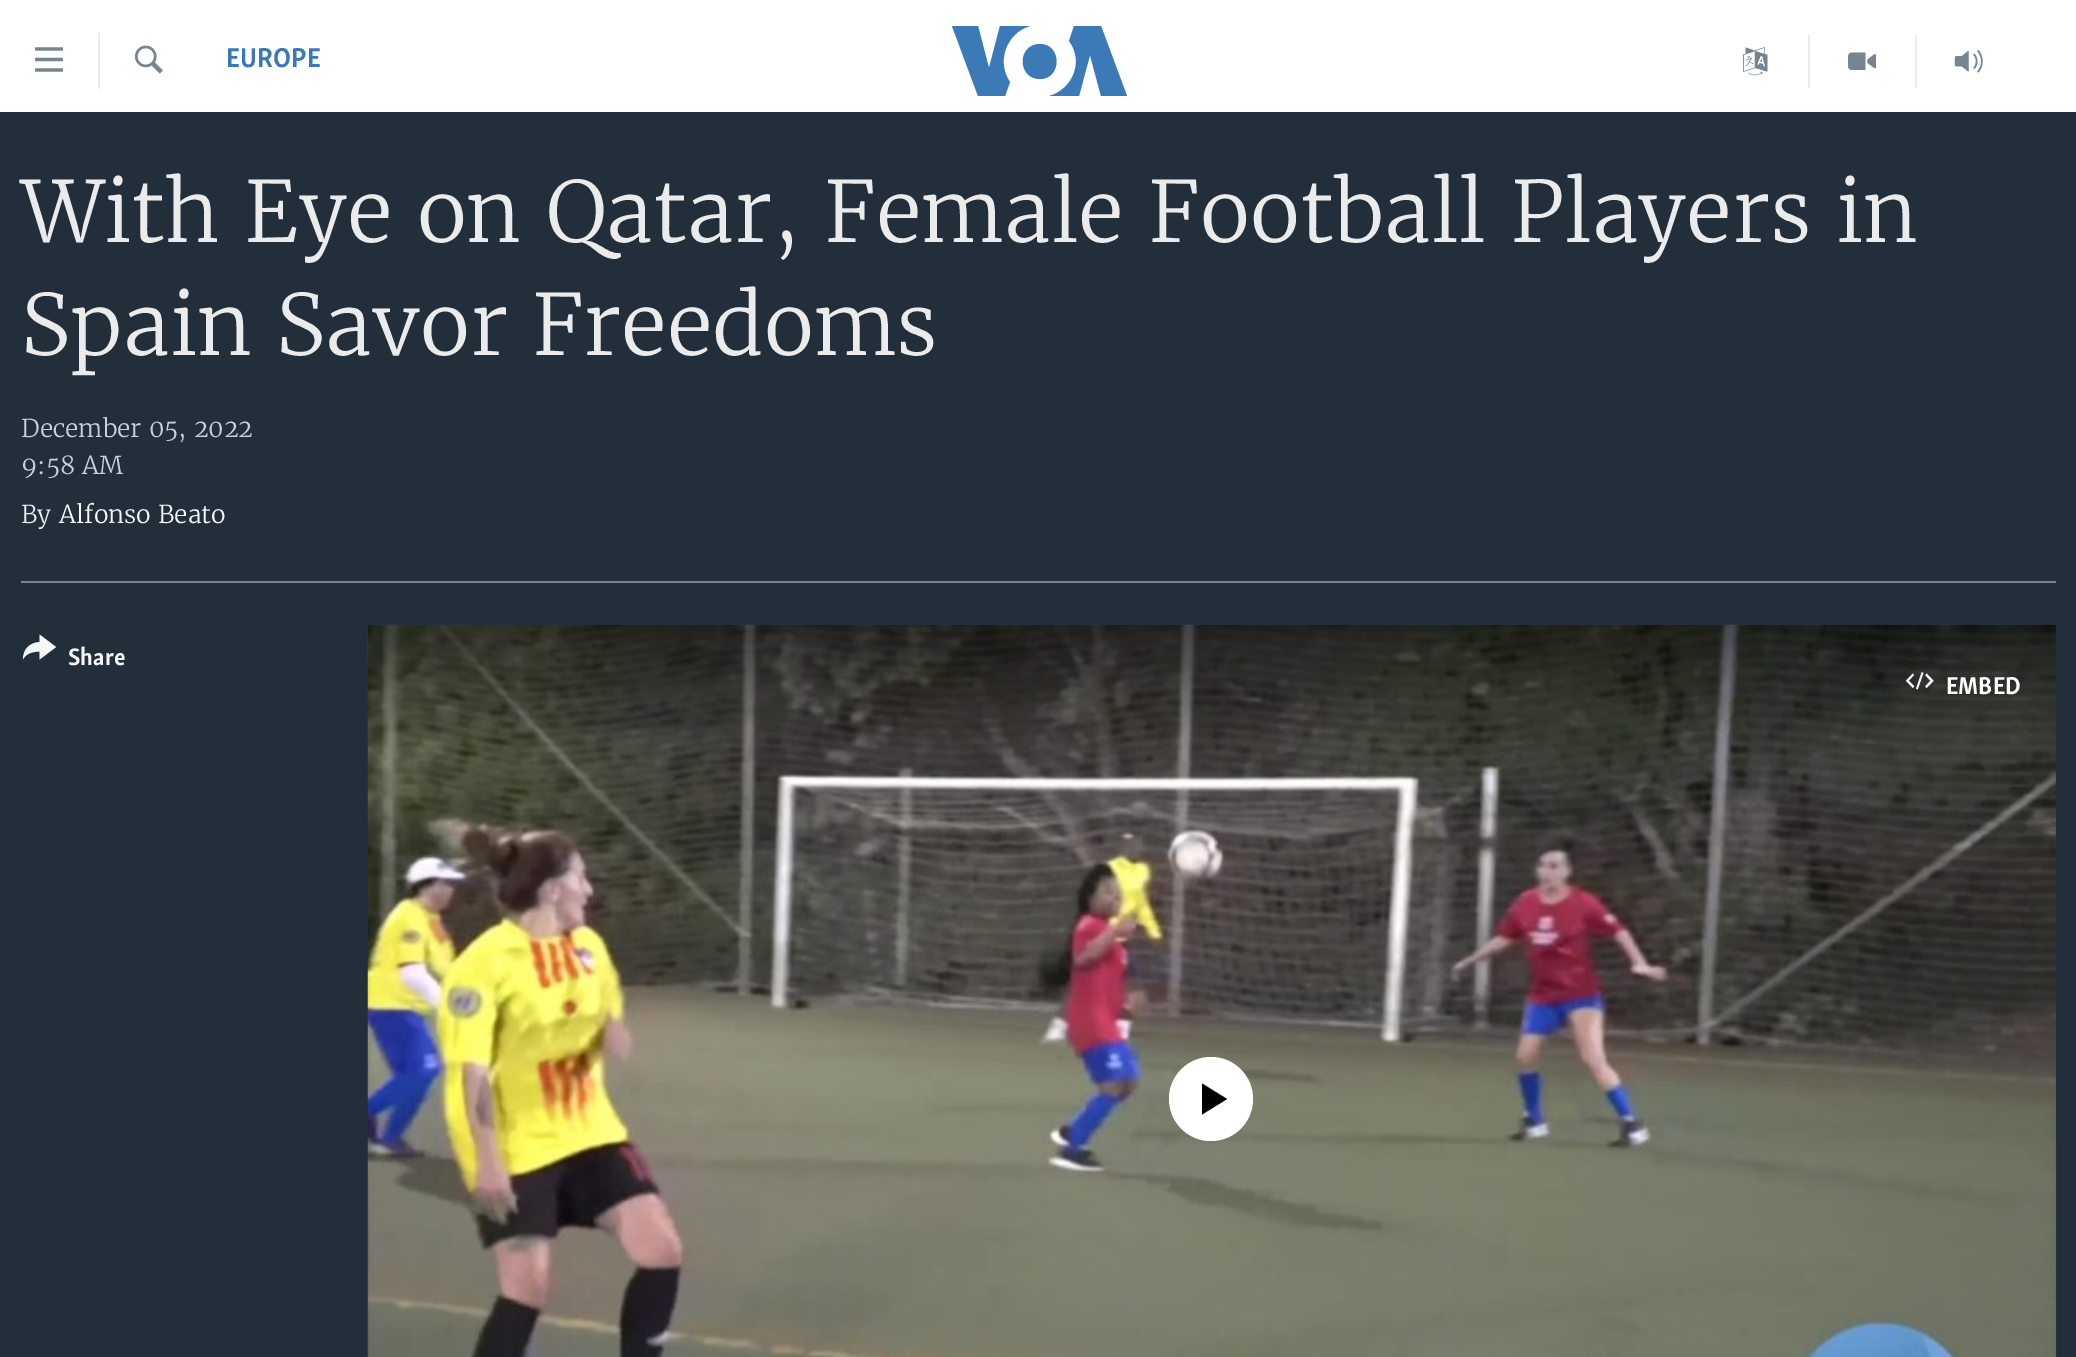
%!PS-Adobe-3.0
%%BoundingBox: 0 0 2076 1357
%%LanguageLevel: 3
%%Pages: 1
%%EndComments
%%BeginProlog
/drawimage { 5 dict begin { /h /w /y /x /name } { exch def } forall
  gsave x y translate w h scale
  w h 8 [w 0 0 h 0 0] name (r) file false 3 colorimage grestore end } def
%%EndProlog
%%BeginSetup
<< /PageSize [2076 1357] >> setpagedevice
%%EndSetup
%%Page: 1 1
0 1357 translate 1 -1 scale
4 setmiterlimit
1 setgray
0 0 2076 1357 rectfill
(images/1.raw) 35 47 28 25 drawimage
0.922 setgray
98 33 2 56 rectfill
(images/2.raw) 134 45 29 29 drawimage
0.231 0.475 0.718 setrgbcolor
newpath 1010 82 moveto 1005 96 lineto 978 96 lineto 952 26 lineto 978 26 lineto 989 68 lineto 1000 26 lineto 1030 26 lineto 1006 33 996 62 1010 82 curveto closepath 1040 44 moveto 1017 44 1017 79 1040 79 curveto 1062 79 1062 44 1040 44 curveto closepath 1076 61 moveto 1076 78 1064 92 1049 96 curveto 1079 96 lineto 1090 55 lineto 1101 96 lineto 1127 96 lineto 1101 26 lineto 1074 26 lineto 1069 41 lineto 1073 46 1076 54 1076 61 curveto closepath fill
0.922 setgray
1808 35 2 53 rectfill
(images/3.raw) 1743 47 25 29 drawimage
1915 35 2 53 rectfill
(images/4.raw) 1848 52 28 18 drawimage
(images/5.raw) 1954 49 29 24 drawimage
0.133 0.184 0.227 setrgbcolor
0 112 2076 1245 rectfill
0.463 0.518 0.573 setrgbcolor
21 581 2035 2 rectfill
0.965 0.969 0.973 setrgbcolor
newpath 23 659.5 moveto 23 649.5 29 643 39.5 642 curveto 39.5 634.5 lineto 56 647 lineto 39.5 659.5 lineto 39.5 651.5 lineto 33 651.5 25.5 653.5 23 659.5 curveto closepath fill
(images/6.raw) 367 624 1690 733 drawimage
(images/7.raw) 1905 672 29 18 drawimage
1 setgray
newpath 1211 1099 42 0 360 arc closepath fill
0 setgray
newpath 1202 1114.5 moveto 1227 1099 lineto 1202 1083.5 lineto closepath fill
/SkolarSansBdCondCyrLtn-Bold [28 0 0 -28 0 0] selectfont
0.227 0.475 0.718 setrgbcolor
226 67 moveto (EUROPE) show
/Merriweather-Light [84 0 0 -84 0 0] selectfont
0.922 setgray
21 242 moveto (With Eye on Qatar, Female Football Players in) show
21 355 moveto (Spain Savor Freedoms) show
/Merriweather-Light [24.5 0 0 -24.5 0 0] selectfont
0.796 0.82 0.839 setrgbcolor
21 437 moveto (December 05, 2022) show
21 474 moveto (9:58 AM) show
0.922 setgray
21 523 moveto (By) show
0.965 0.969 0.973 setrgbcolor
59 523 moveto (Alfonso Beato) show
/SkolarSansBdCondCyrLtn-Bold [24.5 0 0 -24.5 0 0] selectfont
68 665 moveto (Share) show
/SkolarSansBdCondCyrLtn-Bold [25 0 0 -25 0 0] selectfont
1 setgray
1946 694 moveto (EMBED) show
showpage
%%EOF
